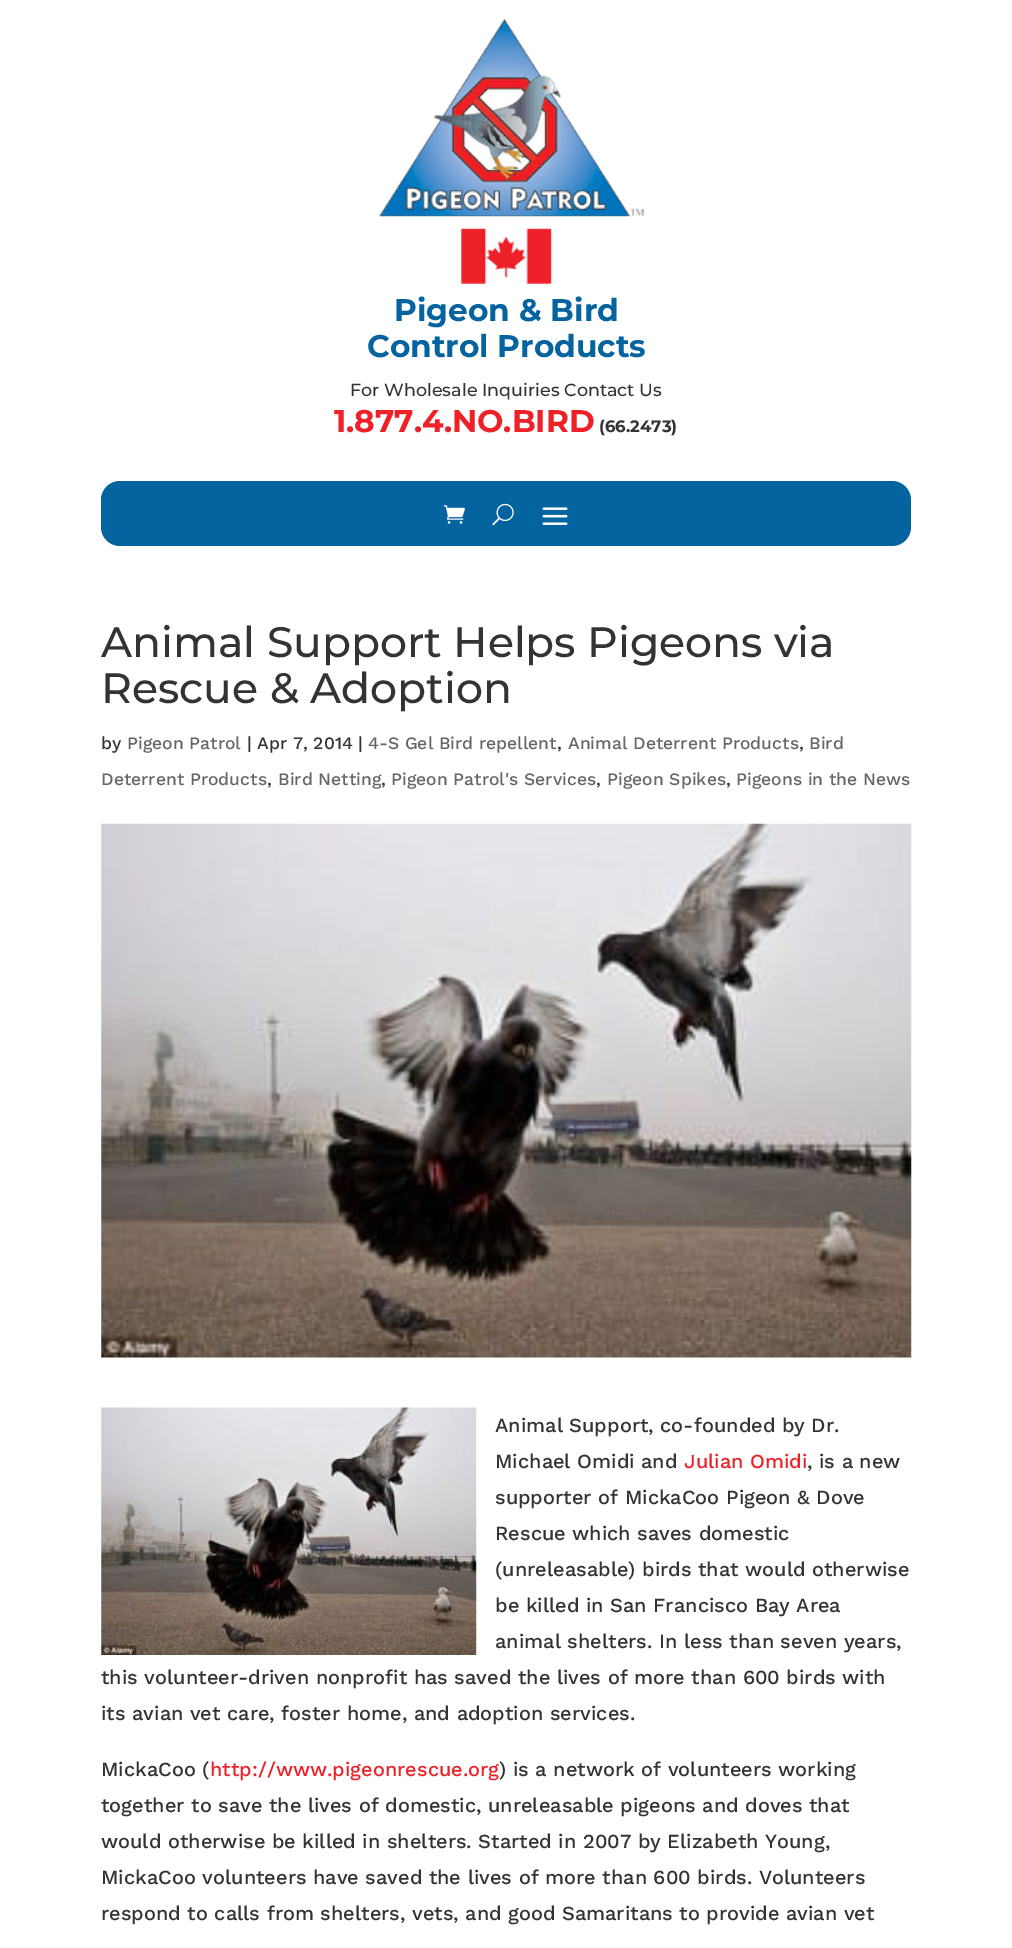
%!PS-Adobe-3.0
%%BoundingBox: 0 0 1012 1948
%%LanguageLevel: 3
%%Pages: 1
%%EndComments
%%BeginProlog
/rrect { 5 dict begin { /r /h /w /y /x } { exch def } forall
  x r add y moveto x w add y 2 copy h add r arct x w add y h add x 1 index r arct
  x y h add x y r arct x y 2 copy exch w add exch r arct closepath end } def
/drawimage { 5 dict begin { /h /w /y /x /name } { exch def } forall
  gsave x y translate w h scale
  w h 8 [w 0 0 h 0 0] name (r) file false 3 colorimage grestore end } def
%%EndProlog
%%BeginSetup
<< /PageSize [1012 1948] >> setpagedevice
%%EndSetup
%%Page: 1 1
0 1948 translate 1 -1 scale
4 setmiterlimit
1 setgray
0 0 1012 1948 rectfill
(images/1.raw) 378 18 266 199 drawimage
(images/2.raw) 461 228 91 56 drawimage
0.02 0.388 0.624 setrgbcolor
101 481 810 65 19 rrect fill
(images/3.raw) 443 505 22 19 drawimage
(images/4.raw) 492 503 22 23 drawimage
(images/5.raw) 542 507 26 18 drawimage
(images/6.raw) 101 823 811 535 drawimage
(images/7.raw) 101 1407 376 248 drawimage
/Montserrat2-Thin [31.25 0 0 -31.25 0 0] selectfont
394 321 moveto (Pigeon & Bird) show
367 357 moveto (Control Products) show
/Montserrat-Thin [17.5 0 0 -17.5 0 0] selectfont
0.2 setgray
350 396 moveto (For Wholesale Inquiries Contact Us) show
/Montserrat2-Thin [31.25 0 0 -31.25 0 0] selectfont
0.933 0.129 0.157 setrgbcolor
334 432 moveto (1.877.4.NO.BIRD) show
/Montserrat2-Thin [16.5 0 0 -16.5 0 0] selectfont
0.2 setgray
599 432 moveto (\(66.2473\)) show
/Montserrat-Thin [42.5 0 0 -42.5 0 0] selectfont
101 657 moveto (Animal Support Helps Pigeons via) show
101 703 moveto (Rescue & Adoption) show
/WorkSans-Medium [17.5 0 0 -17.5 0 0] selectfont
101 749 moveto (by) show
0.4 setgray
127 749 moveto (Pigeon Patrol) show
0.2 setgray
247 749 moveto (| Apr 7, 2014 |) show
0.4 setgray
368 749 moveto (4-S Gel Bird repellent) show
0.2 setgray
557 749 moveto (,) show
0.4 setgray
568 749 moveto (Animal Deterrent Products) show
0.2 setgray
799 749 moveto (,) show
0.4 setgray
809 749 moveto (Bird) show
101 785 moveto (Deterrent Products) show
0.2 setgray
267 785 moveto (,) show
0.4 setgray
278 785 moveto (Bird Netting) show
0.2 setgray
381 785 moveto (,) show
0.4 setgray
391 785 moveto (Pigeon Patrol's Services) show
0.2 setgray
596 785 moveto (,) show
0.4 setgray
607 785 moveto (Pigeon Spikes) show
0.2 setgray
726 785 moveto (,) show
0.4 setgray
736 785 moveto (Pigeons in the News) show
/WorkSans-Medium [20 0 0 -20 0 0] selectfont
0.2 setgray
495 1432 moveto (Animal Support, co-founded by Dr.) show
495 1468 moveto (Michael Omidi and) show
0.933 0.129 0.157 setrgbcolor
684 1468 moveto (Julian Omidi) show
0.2 setgray
807 1468 moveto (, is a new) show
495 1504 moveto (supporter of MickaCoo Pigeon & Dove) show
495 1540 moveto (Rescue which saves domestic) show
495 1576 moveto (\(unreleasable\) birds that would otherwise) show
495 1612 moveto (be killed in San Francisco Bay Area) show
495 1648 moveto (animal shelters. In less than seven years,) show
101 1684 moveto (this volunteer-driven nonprofit has saved the lives of more than 600 birds with) show
101 1720 moveto (its avian vet care, foster home, and adoption services.) show
101 1776 moveto (MickaCoo \() show
0.933 0.129 0.157 setrgbcolor
210 1776 moveto (http://www.pigeonrescue.org) show
0.2 setgray
499 1776 moveto (\) is a network of volunteers working) show
101 1812 moveto (together to save the lives of domestic, unreleasable pigeons and doves that) show
101 1848 moveto (would otherwise be killed in shelters. Started in 2007 by Elizabeth Young,) show
101 1884 moveto (MickaCoo volunteers have saved the lives of more than 600 birds. Volunteers) show
101 1920 moveto (respond to calls from shelters, vets, and good Samaritans to provide avian vet) show
showpage
%%EOF
